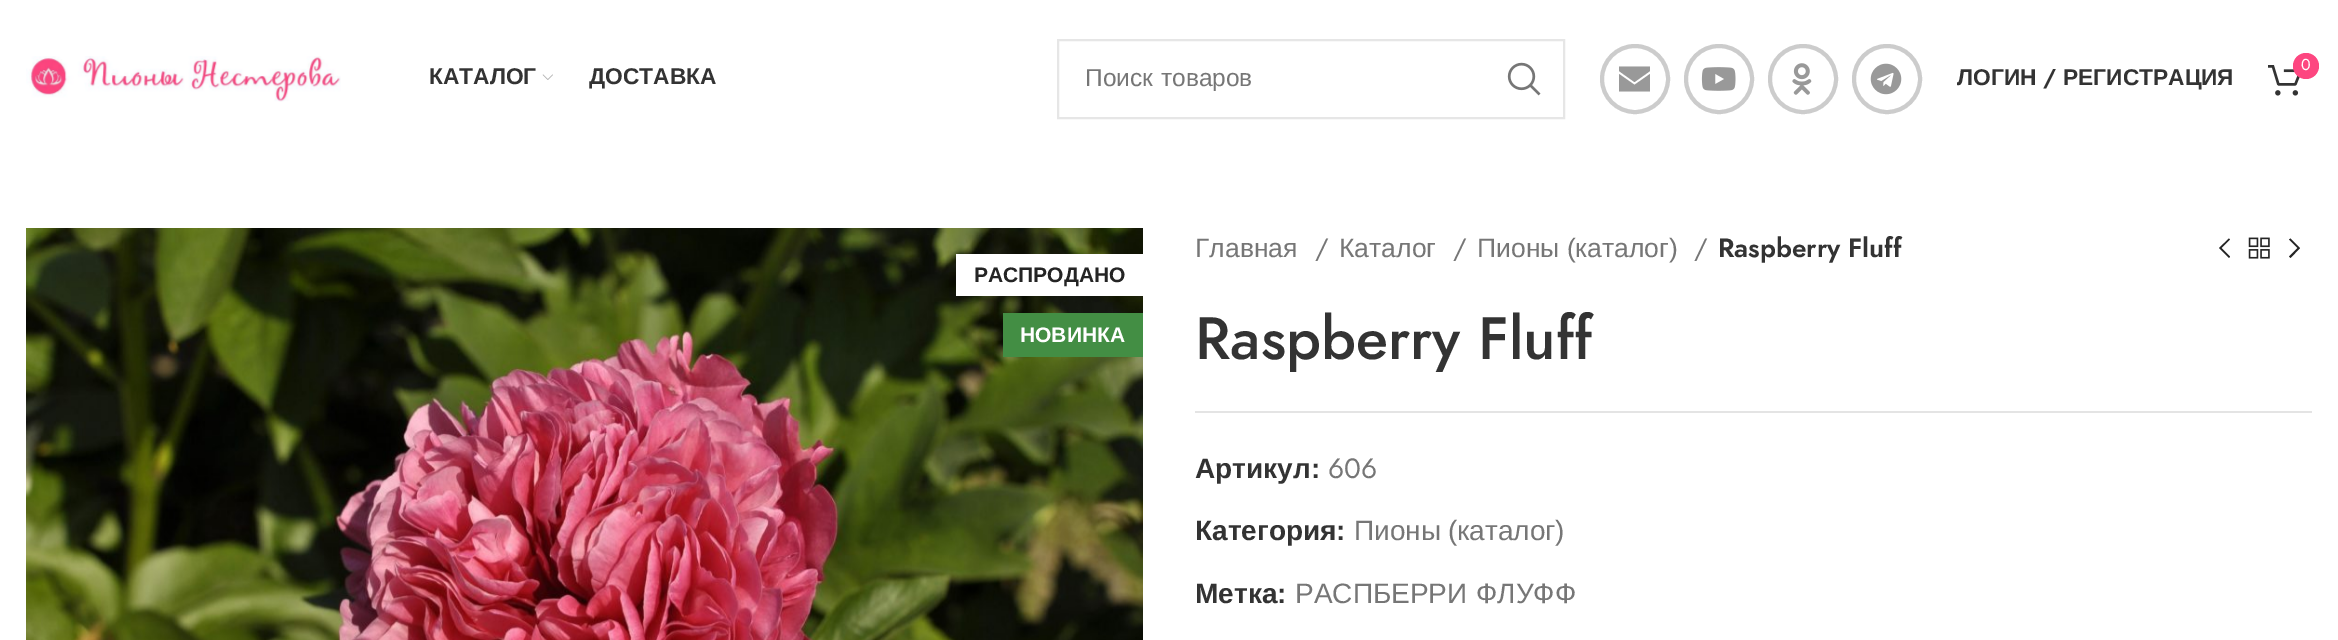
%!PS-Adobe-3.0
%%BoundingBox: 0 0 2338 640
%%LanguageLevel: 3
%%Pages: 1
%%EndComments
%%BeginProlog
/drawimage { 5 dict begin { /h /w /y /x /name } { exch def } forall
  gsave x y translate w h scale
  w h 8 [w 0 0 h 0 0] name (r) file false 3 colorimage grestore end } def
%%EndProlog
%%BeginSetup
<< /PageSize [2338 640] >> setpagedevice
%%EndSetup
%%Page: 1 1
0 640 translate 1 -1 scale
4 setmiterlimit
1 setgray
0 0 2338 640 rectfill
(images/1.raw) 26 56 315 46 drawimage
(images/2.raw) 542 74 11 6 drawimage
0.8 setgray
4 setlinewidth
newpath 1635 79 33 0 360 arc closepath stroke
0.6 setgray
newpath 1650 66.5 moveto 1619 66.5 lineto 1619 71 lineto 1634.5 82 lineto 1650 71 lineto closepath 1650 74 moveto 1635 84.5 lineto 1634 84.5 lineto 1619 74 lineto 1619 91.5 lineto 1650 91.5 lineto closepath fill
0.8 setgray
newpath 1719 79 33 0 360 arc closepath stroke
(images/3.raw) 1701 67 35 24 drawimage
newpath 1803 79 33 0 360 arc closepath stroke
(images/4.raw) 1792 63 20 32 drawimage
newpath 1887 79 33 0 360 arc closepath stroke
(images/5.raw) 1870 63 32 32 drawimage
(images/6.raw) 2268 65 32 31 drawimage
0.992 0.275 0.502 setrgbcolor
newpath 2306 66 13 0 360 arc closepath fill
0.902 setgray
2 setlinewidth
1058 40 506 78 rectstroke
(images/7.raw) 1507 62 34 34 drawimage
(images/8.raw) 26 228 1117 412 drawimage
1 setgray
956 254 187 42 rectfill
0.263 0.557 0.267 setrgbcolor
1003 313 140 44 rectfill
0.141 setgray
newpath 2230 239.5 moveto 2229 238.5 lineto 2219 248 lineto 2229 258 lineto 2230 256.5 lineto 2221.5 248 lineto closepath fill
(images/9.raw) 2248 237 22 22 drawimage
newpath 2289 239.5 moveto 2297.5 248 lineto 2289 256.5 lineto 2290.5 258 lineto 2300 248 lineto 2290.5 238.5 lineto closepath fill
0.894 setgray
1195 411 1117 2 rectfill
/LiberationSans-Bold [22.75 0 0 -22.75 0 0] selectfont
0.2 setgray
429 84 moveto (КАТАЛОГ) show
589 84 moveto (ДОСТАВКА) show
/Jost-Regular [16 0 0 -16 0 0] selectfont
1 setgray
2301 70 moveto (0) show
/LiberationSans-Regular [24.5 0 0 -24.5 0 0] selectfont
0.463 setgray
1085 86 moveto 1 0 32 (Поиск товаров) widthshow
/LiberationSans-Bold [22.75 0 0 -22.75 0 0] selectfont
0.2 setgray
1957 85 moveto (ЛОГИН) show
/Jost-SemiBold [22.75 0 0 -22.75 0 0] selectfont
2043 85 moveto (/) show
/LiberationSans-Bold [22.75 0 0 -22.75 0 0] selectfont
2063 85 moveto (РЕГИСТРАЦИЯ) show
/LiberationSans-Bold [21 0 0 -21 0 0] selectfont
0.141 setgray
974 282 moveto (РАСПРОДАНО) show
1 setgray
1020 342 moveto (НОВИНКА) show
/LiberationSans-Regular [26.5 0 0 -26.5 0 0] selectfont
0.463 setgray
1195 257 moveto (Главная) show
/Jost-Regular [26.5 0 0 -26.5 0 0] selectfont
1315 257 moveto (/) show
/LiberationSans-Regular [26.5 0 0 -26.5 0 0] selectfont
1339 257 moveto (Каталог) show
/Jost-Regular [26.5 0 0 -26.5 0 0] selectfont
1453 257 moveto (/) show
/LiberationSans-Regular [26.5 0 0 -26.5 0 0] selectfont
1477 257 moveto (Пионы \(каталог\)) show
/Jost-Regular [26.5 0 0 -26.5 0 0] selectfont
1694 257 moveto (/) show
/Jost-SemiBold [26.5 0 0 -26.5 0 0] selectfont
0.2 setgray
1718 257 moveto (Raspberry Fluff) show
/Jost-Medium [59.5 0 0 -59.5 0 0] selectfont
1195 359 moveto (Raspberry Fluff) show
/LiberationSans-Bold [28 0 0 -28 0 0] selectfont
1195 478 moveto (Артикул:) show
/Jost-Regular [28 0 0 -28 0 0] selectfont
0.463 setgray
1328 478 moveto (606) show
/LiberationSans-Bold [28 0 0 -28 0 0] selectfont
0.2 setgray
1195 540 moveto (Категория:) show
/LiberationSans-Regular [28 0 0 -28 0 0] selectfont
0.463 setgray
1354 540 moveto -1 0 32 (Пионы \(каталог\)) widthshow
/LiberationSans-Bold [28 0 0 -28 0 0] selectfont
0.2 setgray
1195 603 moveto (Метка:) show
/LiberationSans-Regular [28 0 0 -28 0 0] selectfont
0.463 setgray
1295 603 moveto 1 0 32 (РАСПБЕРРИ ФЛУФФ) widthshow
showpage
%%EOF
